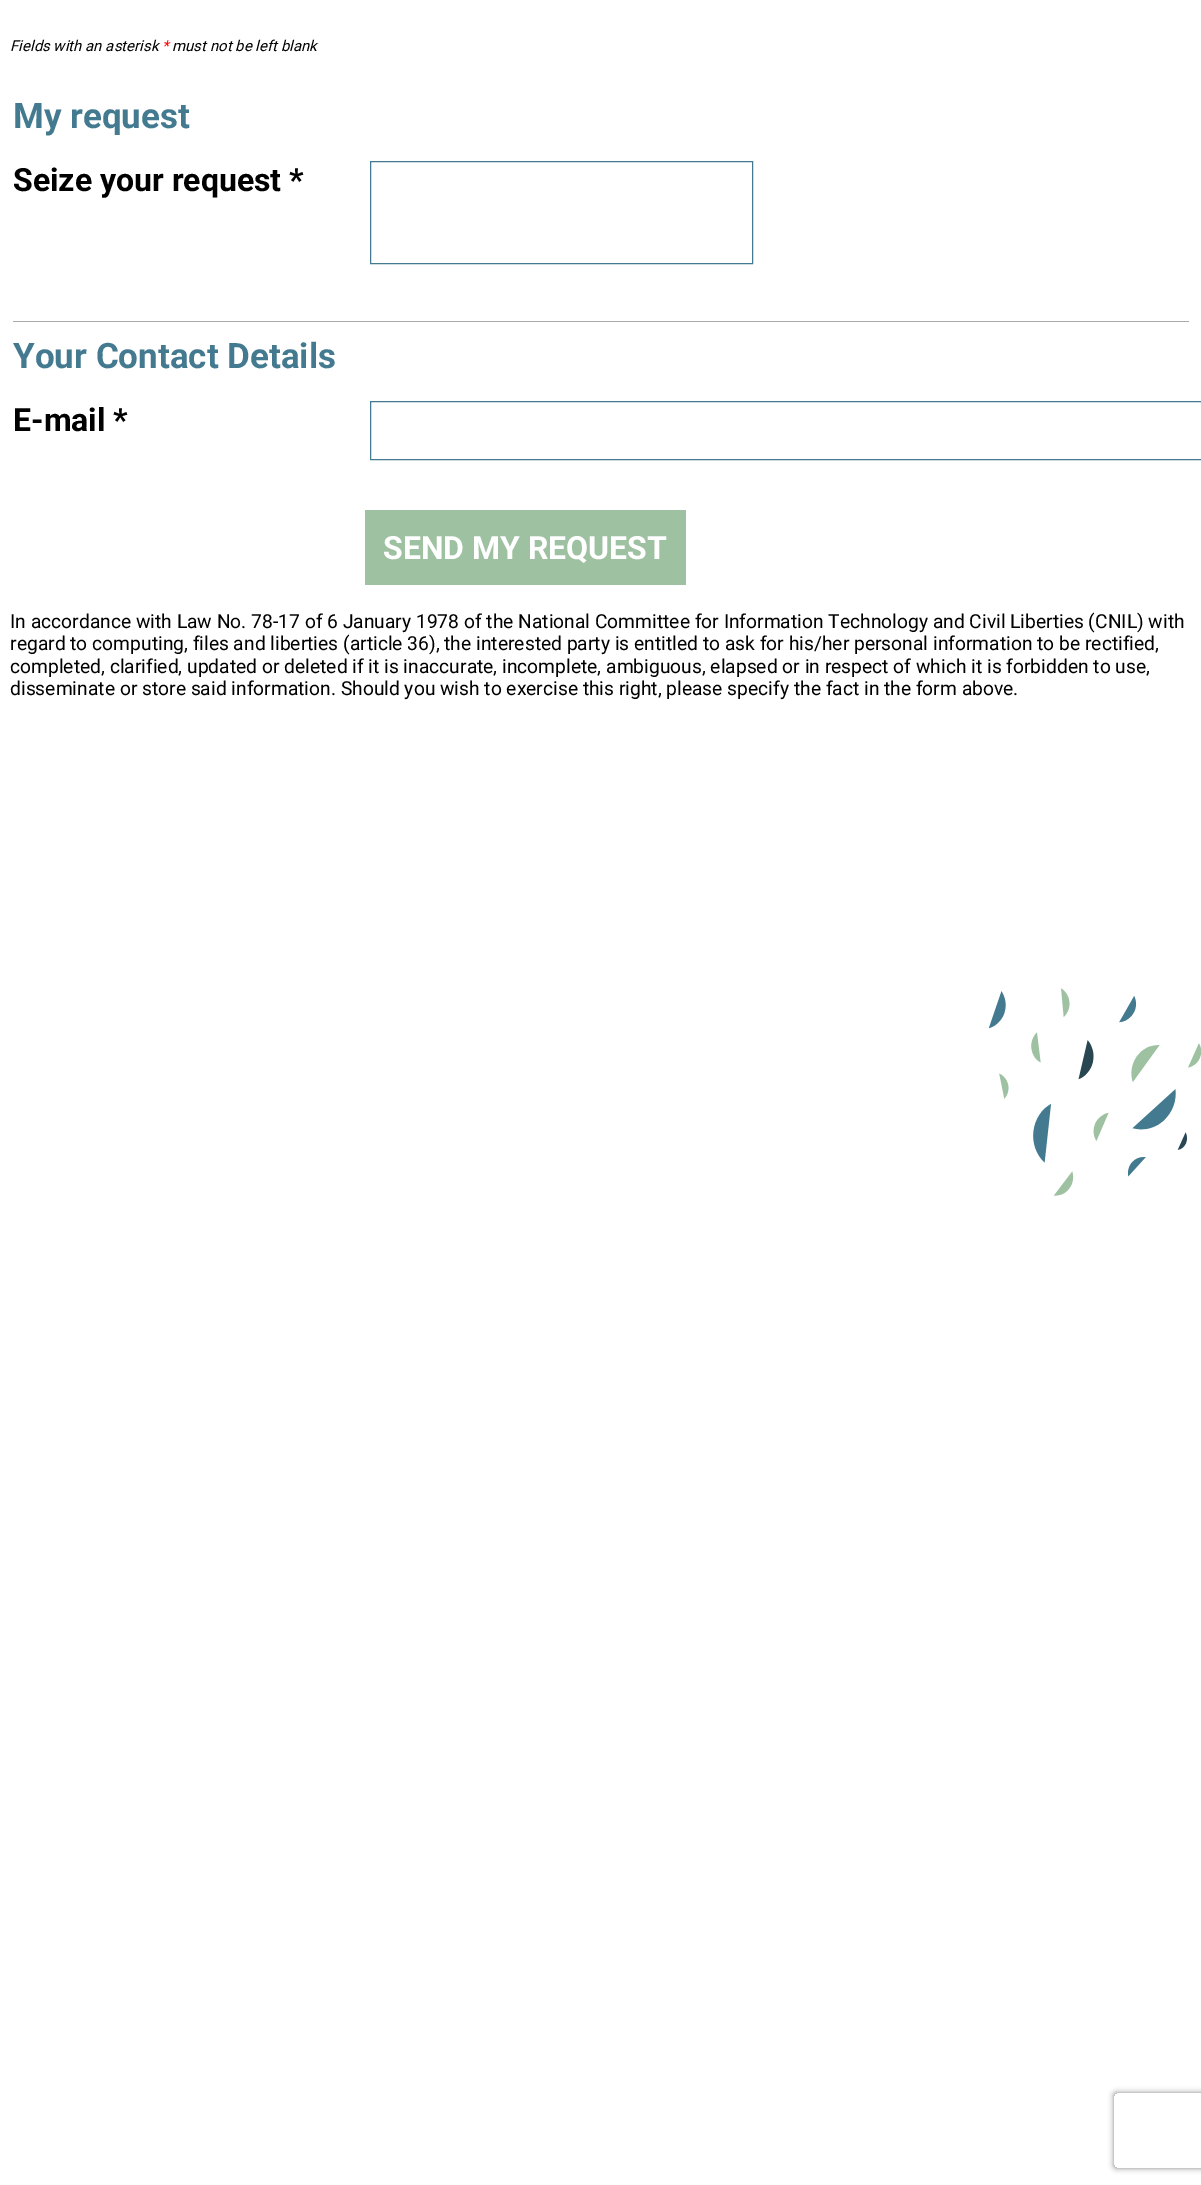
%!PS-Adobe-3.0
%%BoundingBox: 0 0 1201 2185
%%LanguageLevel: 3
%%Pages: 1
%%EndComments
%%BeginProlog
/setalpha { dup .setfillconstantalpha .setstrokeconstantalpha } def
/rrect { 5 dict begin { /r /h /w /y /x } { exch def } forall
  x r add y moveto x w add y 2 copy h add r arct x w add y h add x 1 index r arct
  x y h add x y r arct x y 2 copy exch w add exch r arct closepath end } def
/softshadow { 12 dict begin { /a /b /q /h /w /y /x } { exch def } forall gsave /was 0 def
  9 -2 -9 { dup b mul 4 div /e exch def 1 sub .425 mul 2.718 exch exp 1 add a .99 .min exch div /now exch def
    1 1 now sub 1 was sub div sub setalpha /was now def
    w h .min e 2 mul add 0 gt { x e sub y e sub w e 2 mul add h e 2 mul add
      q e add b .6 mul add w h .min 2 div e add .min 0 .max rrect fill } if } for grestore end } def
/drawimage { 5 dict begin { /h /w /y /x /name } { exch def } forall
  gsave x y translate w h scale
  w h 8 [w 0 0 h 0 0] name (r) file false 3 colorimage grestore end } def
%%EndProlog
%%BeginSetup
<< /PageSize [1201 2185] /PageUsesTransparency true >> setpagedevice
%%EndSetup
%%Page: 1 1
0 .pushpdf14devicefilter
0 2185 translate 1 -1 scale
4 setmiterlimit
1 setgray
0 0 1201 2185 rectfill
(images/1.raw) 989 988 212 208 drawimage
0.667 setgray
13 321 1176 1 rectfill
0.263 0.478 0.565 setrgbcolor
370.5 161.5 382 102 rectstroke
370.5 401.5 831 58 rectstroke
0.62 0.757 0.631 setrgbcolor
365 510 321 75 rectfill
gsave
newpath 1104 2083 moveto 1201 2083 lineto 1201 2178 lineto 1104 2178 lineto closepath 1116.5 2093 moveto 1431.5 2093 lineto 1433 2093 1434 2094 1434 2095.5 curveto 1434 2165.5 lineto 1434 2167 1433 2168 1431.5 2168 curveto 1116.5 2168 lineto 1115 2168 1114 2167 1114 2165.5 curveto 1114 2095.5 lineto 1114 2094 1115 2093 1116.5 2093 curveto closepath eoclip newpath
0.502 setgray
1114 2093 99 75 2.5 3 1 softshadow
grestore
/Roboto-Italic [15 0 0 -15 0 0] selectfont
0 setgray
10 51 moveto (Fields with an asterisk) show
1 0 0 setrgbcolor
162 51 moveto (*) show
0 setgray
172 51 moveto (must not be left blank) show
/Roboto-Bold [35 0 0 -35 0 0] selectfont
0.263 0.478 0.565 setrgbcolor
13 128 moveto (My request) show
/Roboto-Bold [32 0 0 -32 0 0] selectfont
0 setgray
13 191 moveto (Seize your request *) show
/Roboto-Bold [35 0 0 -35 0 0] selectfont
0.263 0.478 0.565 setrgbcolor
13 368 moveto (Your Contact Details) show
/Roboto-Bold [32 0 0 -32 0 0] selectfont
0 setgray
13 431 moveto (E-mail *) show
1 setgray
383 559 moveto (SEND MY REQUEST) show
/Roboto-Regular [19.25 0 0 -19.25 0 0] selectfont
0 setgray
10 628 moveto (In accordance with Law No. 78-17 of 6 January 1978 of the National Committee for Information Technology and Civil Liberties \(CNIL\) with) show
10 650 moveto (regard to computing, files and liberties \(article 36\), the interested party is entitled to ask for his/her personal information to be rectified,) show
10 673 moveto (completed, clarified, updated or deleted if it is inaccurate, incomplete, ambiguous, elapsed or in respect of which it is forbidden to use,) show
10 695 moveto (disseminate or store said information. Should you wish to exercise this right, please specify the fact in the form above.) show
.poppdf14devicefilter showpage
%%EOF
